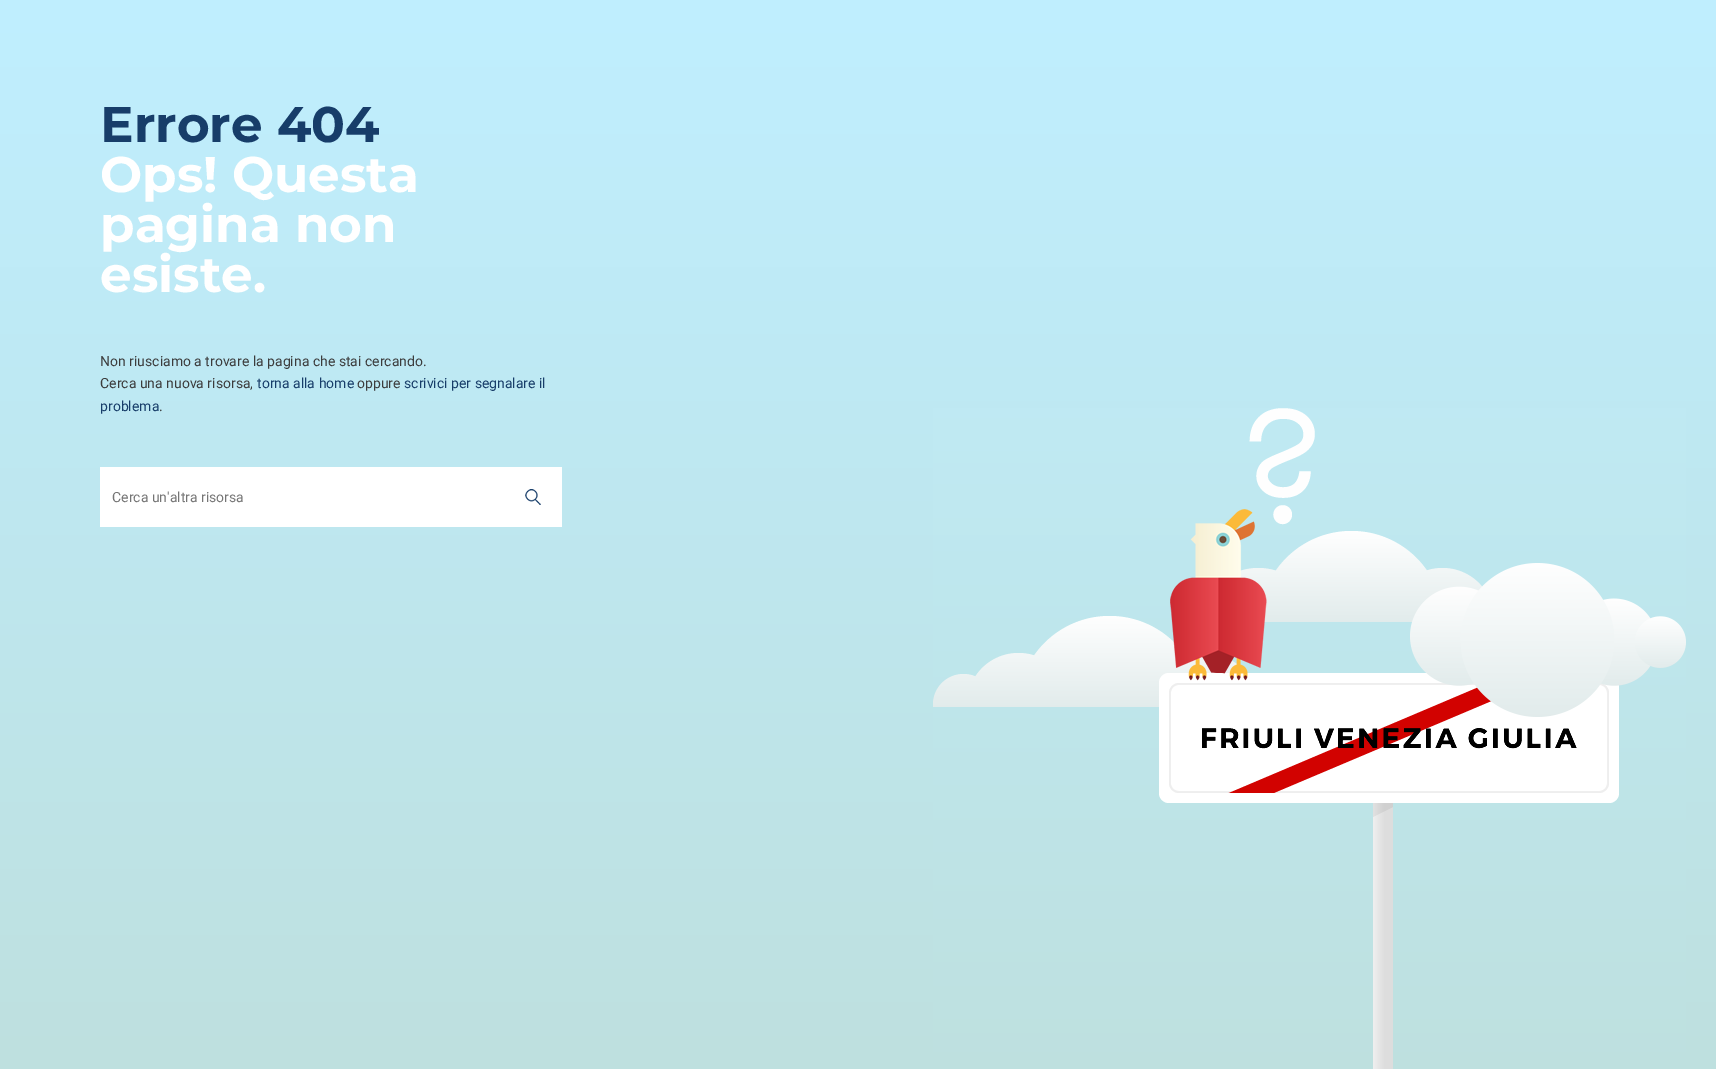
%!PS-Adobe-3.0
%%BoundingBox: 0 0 1716 1069
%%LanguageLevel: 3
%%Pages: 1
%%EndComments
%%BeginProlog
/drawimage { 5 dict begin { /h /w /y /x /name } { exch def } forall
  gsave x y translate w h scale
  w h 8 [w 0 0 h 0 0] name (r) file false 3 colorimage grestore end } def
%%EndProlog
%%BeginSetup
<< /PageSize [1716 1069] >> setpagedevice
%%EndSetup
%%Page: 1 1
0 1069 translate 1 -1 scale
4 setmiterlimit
1 setgray
0 0 1716 1069 rectfill
gsave newpath 0 0 moveto 1716 0 lineto 1716 1069 lineto 0 1069 lineto closepath clip newpath
<< /ShadingType 2 /ColorSpace /DeviceRGB /Coords [858 0 858 1069] /Extend [true true] /Function << /FunctionType 2 /Domain [0 1] /C0 [0.749 0.937 1] /C1 [0.745 0.878 0.875] /N 1 >> >> shfill grestore
100 467 462 60 rectfill
(images/1.raw) 525 489 16 16 drawimage
(images/2.raw) 933 408 753 661 drawimage
/Montserrat-Bold [50 0 0 -50 0 0] selectfont
0.09 0.239 0.412 setrgbcolor
100 142 moveto (Errore 404) show
1 setgray
100 192 moveto (Ops! Questa) show
100 242 moveto (pagina non) show
100 292 moveto (esiste.) show
/Roboto-Regular [14 0 0 -14 0 0] selectfont
0.235 setgray
100 366 moveto (Non riusciamo a trovare la pagina che stai cercando.) show
100 388 moveto (Cerca una nuova risorsa,) show
0.09 0.239 0.412 setrgbcolor
257 388 moveto (torna alla home) show
0.235 setgray
357 388 moveto (oppure) show
0.09 0.239 0.412 setrgbcolor
404 388 moveto (scrivici per segnalare il) show
100 411 moveto (problema) show
0.235 setgray
159 411 moveto (.) show
0.459 setgray
112 502 moveto (Cerca un'altra risorsa) show
showpage
%%EOF
